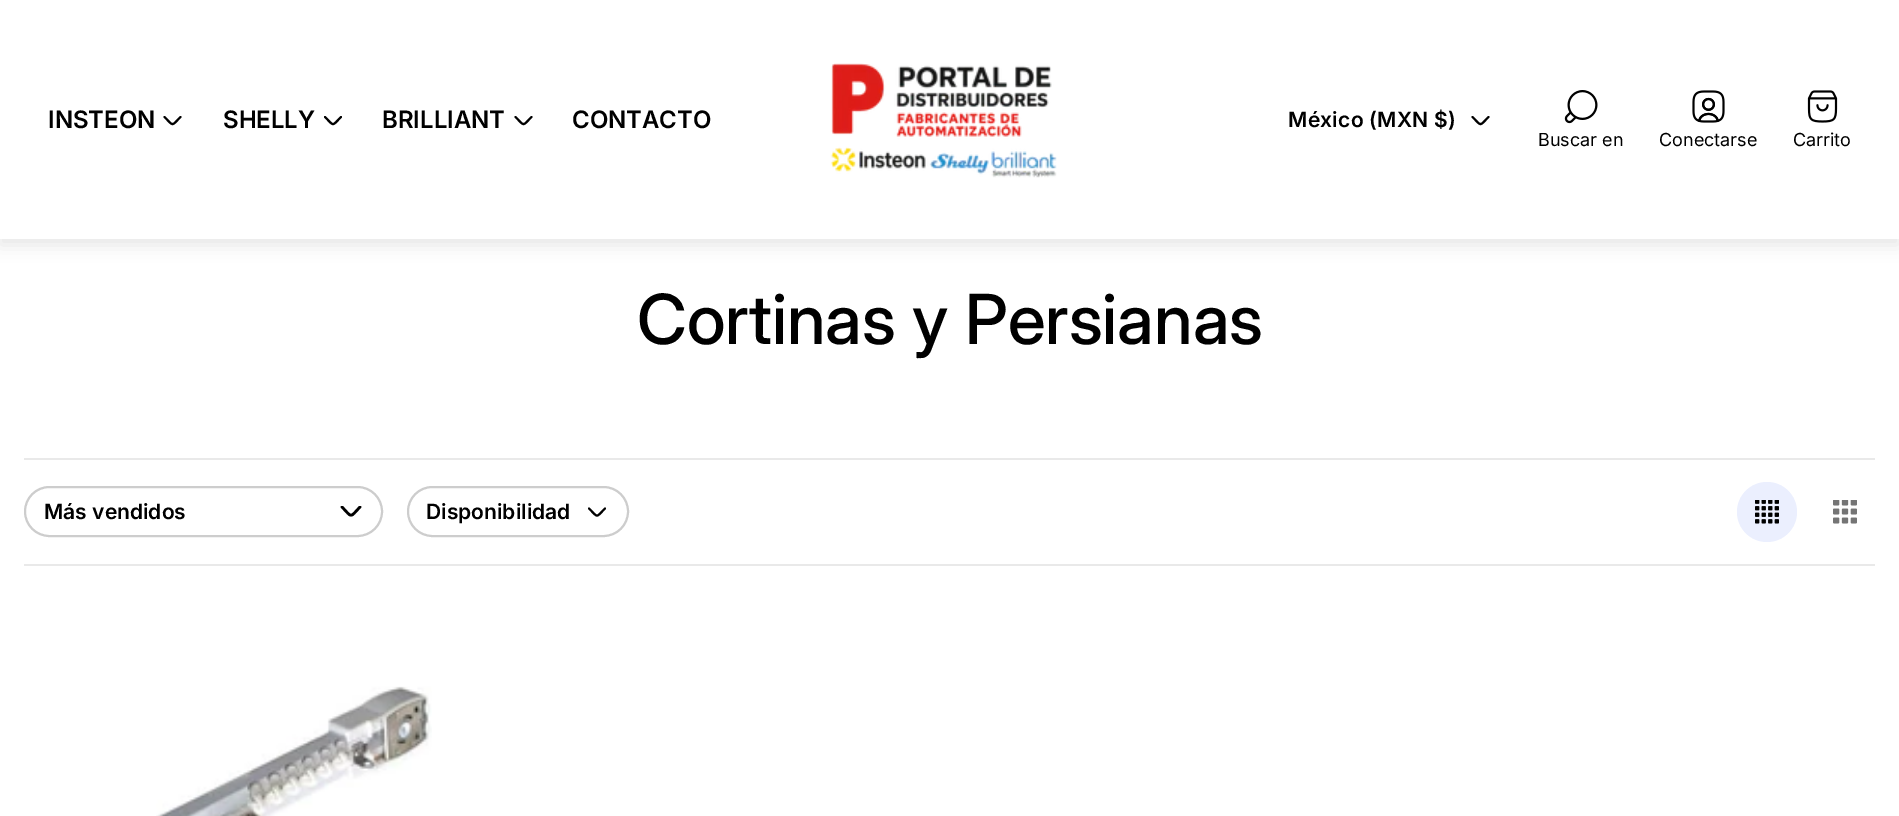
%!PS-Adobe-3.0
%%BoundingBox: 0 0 1899 816
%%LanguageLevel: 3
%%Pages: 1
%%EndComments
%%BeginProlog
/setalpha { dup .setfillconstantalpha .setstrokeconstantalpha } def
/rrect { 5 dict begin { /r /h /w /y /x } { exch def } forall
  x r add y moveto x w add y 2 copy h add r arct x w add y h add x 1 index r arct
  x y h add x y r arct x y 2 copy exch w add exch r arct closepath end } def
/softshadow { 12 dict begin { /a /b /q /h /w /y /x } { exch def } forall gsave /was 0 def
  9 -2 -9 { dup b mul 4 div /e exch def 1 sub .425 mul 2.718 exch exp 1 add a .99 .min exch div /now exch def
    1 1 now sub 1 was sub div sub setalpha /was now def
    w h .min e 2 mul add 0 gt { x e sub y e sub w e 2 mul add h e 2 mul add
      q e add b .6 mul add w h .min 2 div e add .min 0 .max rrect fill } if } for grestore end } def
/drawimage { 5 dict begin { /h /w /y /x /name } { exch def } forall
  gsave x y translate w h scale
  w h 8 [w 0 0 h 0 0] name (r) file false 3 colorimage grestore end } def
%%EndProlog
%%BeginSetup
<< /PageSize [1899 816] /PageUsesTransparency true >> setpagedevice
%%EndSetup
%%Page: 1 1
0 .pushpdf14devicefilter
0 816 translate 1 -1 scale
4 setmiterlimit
1 setgray
0 0 1899 816 rectfill
0 setgray
0 6 1899 239 0 8 0.1 softshadow
1 setgray
0 0 1899 239 rectfill
0 setgray
2 setlinewidth
1 setlinecap
1 setlinejoin
newpath 180.5 117 moveto 171 126.5 174 126.5 164.5 117 curveto stroke
newpath 341 117 moveto 331.5 126.5 334.5 126.5 325 117 curveto stroke
newpath 531.5 117 moveto 522 126.5 525 126.5 515.5 117 curveto stroke
(images/1.raw) 830 63 227 115 drawimage
newpath 1488.5 117 moveto 1479 126.5 1482 126.5 1472.5 117 curveto stroke
(images/2.raw) 1564 90 34 34 drawimage
(images/3.raw) 1692 90 33 33 drawimage
(images/4.raw) 1807 90 31 33 drawimage
0.914 setgray
24 458 1851 2 rectfill
24 564 1851 2 rectfill
gsave
339 506 24 12 rectclip
0 setgray
2.6 setlinewidth
newpath 360 507 moveto 349.5 518 352.5 518 342 507 curveto stroke
grestore
0.804 setgray
0 setlinecap
0 setlinejoin
25 487 357 49 24.5 rrect stroke
408 487 220 49 24.5 rrect stroke
0 setgray
1 setlinecap
1 setlinejoin
newpath 605 508.5 moveto 595.5 518 598.5 518 589 508.5 curveto stroke
0.922 0.937 0.996 setrgbcolor
newpath 1767 512 30 0 360 arc closepath fill
(images/5.raw) 1755 500 24 24 drawimage
(images/6.raw) 1833 500 24 24 drawimage
(images/7.raw) 156 686 276 130 drawimage
/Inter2-SemiBold [24 0 0 -24 0 0] selectfont
0 setgray
48 128 moveto (INSTEON) show
223 128 moveto (SHELLY) show
382 128 moveto (BRILLIANT) show
572 128 moveto (CONTACTO) show
/Inter-SemiBold [21 0 0 -21 0 0] selectfont
1288 127 moveto 0.25 0 (México \(MXN $\)) ashow
/Inter-Regular [18 0 0 -18 0 0] selectfont
1538 146 moveto (Buscar en) show
1659 146 moveto (Conectarse) show
1793 146 moveto (Carrito) show
/Inter-Medium [69 0 0 -69 0 0] selectfont
637 344 moveto (Cortinas y Persianas) show
/Inter-SemiBold [21 0 0 -21 0 0] selectfont
44 519 moveto (Más vendidos) show
426 519 moveto (Disponibilidad) show
.poppdf14devicefilter showpage
%%EOF
